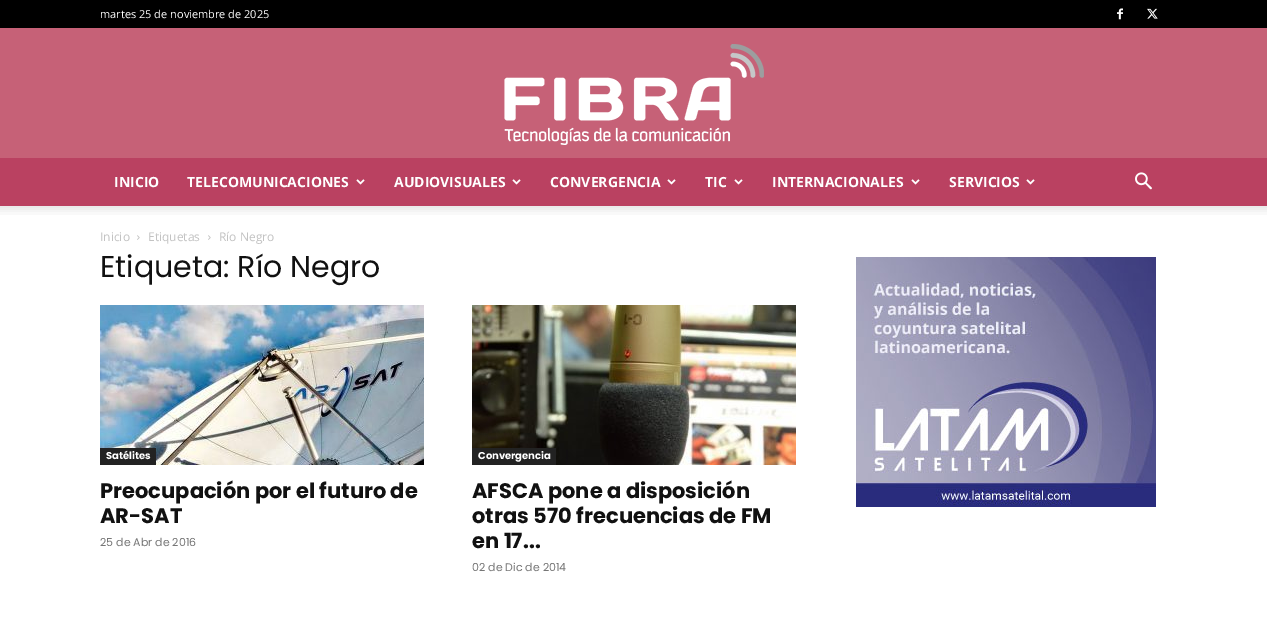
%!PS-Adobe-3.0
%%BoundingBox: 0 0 1267 633
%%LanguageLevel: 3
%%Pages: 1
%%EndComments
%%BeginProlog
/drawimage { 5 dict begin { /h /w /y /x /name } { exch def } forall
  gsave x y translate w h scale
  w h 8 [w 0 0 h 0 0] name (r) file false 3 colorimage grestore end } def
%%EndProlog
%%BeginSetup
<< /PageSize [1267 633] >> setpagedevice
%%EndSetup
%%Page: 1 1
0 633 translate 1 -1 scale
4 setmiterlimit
1 setgray
0 0 1267 633 rectfill
0 setgray
0 0 1267 28 rectfill
(images/1.raw) 1117 8 6 12 drawimage
(images/2.raw) 1147 8 11 11 drawimage
0.776 0.38 0.467 setrgbcolor
0 28 1267 130 rectfill
(images/3.raw) 504 44 260 101 drawimage
0.729 0.255 0.38 setrgbcolor
0 158 1267 48 rectfill
(images/4.raw) 356 179 9 6 drawimage
(images/4.raw) 512 179 9 6 drawimage
(images/4.raw) 667 179 9 6 drawimage
(images/4.raw) 734 179 9 6 drawimage
(images/4.raw) 911 179 9 6 drawimage
(images/4.raw) 1026 179 9 6 drawimage
(images/5.raw) 1135 172 17 18 drawimage
(images/6.raw) 0 206 1267 9 drawimage
(images/7.raw) 137 235 3 5 drawimage
(images/7.raw) 208 235 3 5 drawimage
(images/8.raw) 100 305 324 160 drawimage
0.133 setgray
100 448 56 17 rectfill
(images/9.raw) 472 305 324 160 drawimage
472 448 84 17 rectfill
(images/10.raw) 856 257 300 250 drawimage
/OpenSans-Regular [11 0 0 -11 0 0] selectfont
1 setgray
100 18 moveto (martes 25 de noviembre de 2025) show
/OpenSans-Bold [14 0 0 -14 0 0] selectfont
114 187 moveto (INICIO) show
187 187 moveto (TELECOMUNICACIONES) show
394 187 moveto (AUDIOVISUALES) show
550 187 moveto (CONVERGENCIA) show
705 187 moveto (TIC) show
772 187 moveto (INTERNACIONALES) show
949 187 moveto (SERVICIOS) show
/OpenSans-Regular [12 0 0 -12 0 0] selectfont
0.765 setgray
100 241 moveto (Inicio) show
148 241 moveto (Etiquetas) show
219 241 moveto (Río Negro) show
/Poppins-Regular [30 0 0 -30 0 0] selectfont
0.067 setgray
100 277 moveto (Etiqueta: Río Negro) show
/Poppins-Bold [10 0 0 -10 0 0] selectfont
1 setgray
106 459 moveto (Satélites) show
/Poppins-Bold [21 0 0 -21 0 0] selectfont
0.067 setgray
100 498 moveto (Preocupación por el futuro de) show
100 523 moveto (AR-SAT) show
/Poppins-Regular [11 0 0 -11 0 0] selectfont
0.463 setgray
100 546 moveto (25 de Abr de 2016) show
/Poppins-Bold [10 0 0 -10 0 0] selectfont
1 setgray
478 459 moveto (Convergencia) show
/Poppins-Bold [21 0 0 -21 0 0] selectfont
0.067 setgray
472 498 moveto (AFSCA pone a disposición) show
472 523 moveto (otras 570 frecuencias de FM) show
472 548 moveto (en 17...) show
/Poppins-Regular [11 0 0 -11 0 0] selectfont
0.463 setgray
472 571 moveto (02 de Dic de 2014) show
showpage
%%EOF
